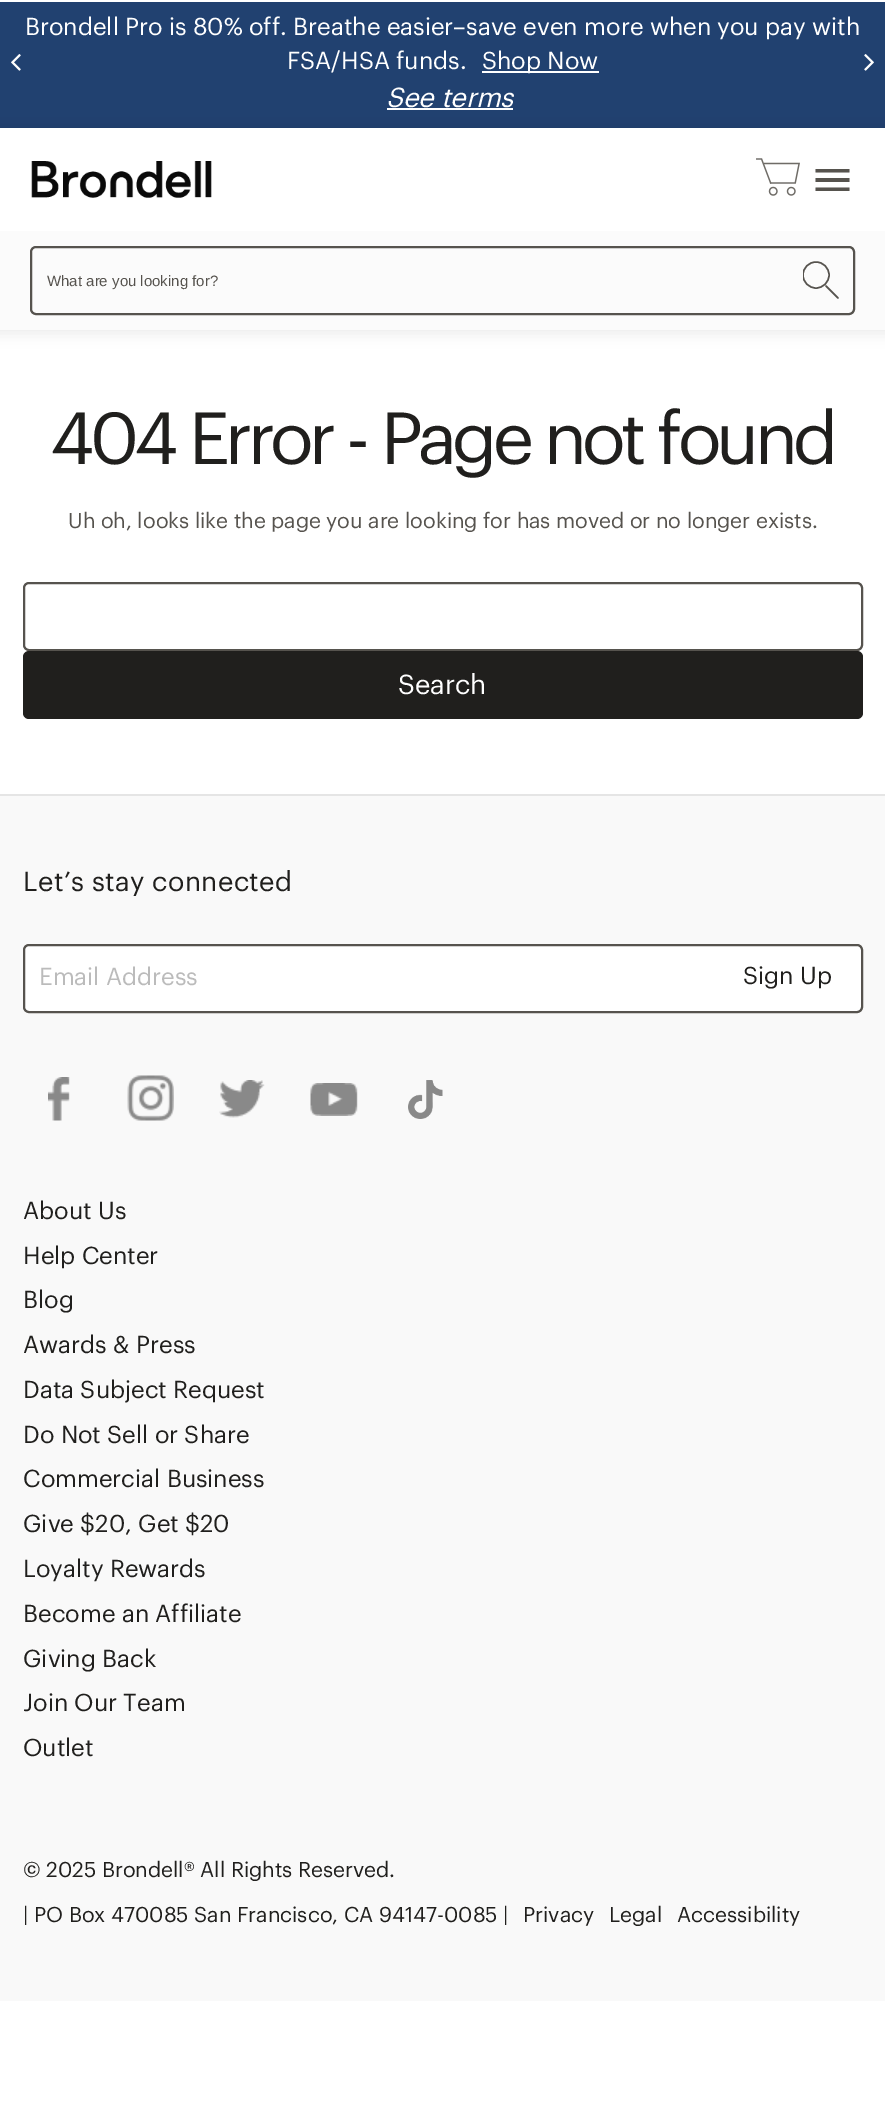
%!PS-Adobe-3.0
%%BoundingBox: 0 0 885 2108
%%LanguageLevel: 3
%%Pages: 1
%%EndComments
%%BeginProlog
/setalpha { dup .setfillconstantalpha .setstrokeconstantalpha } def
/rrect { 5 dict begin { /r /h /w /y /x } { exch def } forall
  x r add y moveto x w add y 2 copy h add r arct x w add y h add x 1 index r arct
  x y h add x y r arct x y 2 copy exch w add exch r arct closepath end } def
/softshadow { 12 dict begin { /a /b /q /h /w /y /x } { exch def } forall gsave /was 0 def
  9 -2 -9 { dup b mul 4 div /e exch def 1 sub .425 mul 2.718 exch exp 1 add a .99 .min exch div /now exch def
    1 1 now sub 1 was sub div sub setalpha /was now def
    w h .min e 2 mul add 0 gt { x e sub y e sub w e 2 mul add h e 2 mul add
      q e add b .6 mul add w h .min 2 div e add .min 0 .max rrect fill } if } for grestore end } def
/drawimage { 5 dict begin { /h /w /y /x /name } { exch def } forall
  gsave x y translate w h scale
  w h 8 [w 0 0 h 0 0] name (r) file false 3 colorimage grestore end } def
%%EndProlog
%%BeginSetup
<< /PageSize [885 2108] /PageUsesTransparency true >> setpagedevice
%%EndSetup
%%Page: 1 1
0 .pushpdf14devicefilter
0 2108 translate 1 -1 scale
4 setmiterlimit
1 setgray
0 0 885 2108 rectfill
0.129 0.255 0.439 setrgbcolor
0 2 885 126 rectfill
(images/1.raw) 11 54 10 17 drawimage
1 setgray
482 71 117 2 rectfill
387 108 126 2 rectfill
(images/2.raw) 864 54 10 17 drawimage
0 setgray
-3 125 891 208 0 7 0.08 softshadow
1 setgray
0 128 885 103 rectfill
(images/3.raw) 31 161 181 37 drawimage
(images/4.raw) 756 158 44 38 drawimage
0.337 0.325 0.306 setrgbcolor
newpath 815.5 169 moveto 849.5 169 lineto 849.5 172.5 lineto 815.5 172.5 lineto closepath 815.5 182 moveto 815.5 178 lineto 849.5 178 lineto 849.5 182 lineto closepath 815.5 191 moveto 815.5 187.5 lineto 849.5 187.5 lineto 849.5 191 lineto closepath fill
0.984 setgray
0 231 885 99 rectfill
0.337 0.325 0.306 setrgbcolor
2 setlinewidth
31 247 823 67 5 rrect stroke
gsave
803 261 36 38 rectclip
1.5 setlinewidth
newpath 816 275 13 0 360 arc closepath stroke
grestore
1.5 setlinewidth
1 setlinecap
newpath 826 286 moveto 838 298 lineto stroke
2 setlinewidth
0 setlinecap
24 583 838 67 5 rrect stroke
0.125 0.122 0.114 setrgbcolor
23 651 840 68 6 rrect fill
0.976 setgray
0 796 885 1205 rectfill
0.898 setgray
0 794 885 2 rectfill
1 setgray
24 945 838 67 5 rrect gsave fill grestore
0.337 0.325 0.306 setrgbcolor
stroke
(images/5.raw) 48 1077 22 44 drawimage
(images/6.raw) 127 1075 47 46 drawimage
(images/7.raw) 219 1080 46 38 drawimage
(images/8.raw) 310 1083 48 33 drawimage
(images/9.raw) 408 1080 35 39 drawimage
/Graphik-Regular [24 0 0 -24 0 0] selectfont
1 setgray
25 35 moveto (Brondell Pro is 80% off. Breathe easier–save even more when you pay with) show
287 69 moveto (FSA/HSA funds.) show
482 69 moveto (Shop Now) show
/Graphik-Italic [27 0 0 -27 0 0] selectfont
386 107 moveto (See terms) show
/LiberationSans-Regular [15 0 0 -15 0 0] selectfont
0.337 0.325 0.306 setrgbcolor
47 286 moveto (What are you looking for?) show
/Graphik-Regular [72 0 0 -72 0 0] selectfont
0.125 0.122 0.114 setrgbcolor
50 464 moveto -4.5 0 (404 Error - Page not found) ashow
/Graphik-Regular [21 0 0 -21 0 0] selectfont
0.337 0.325 0.306 setrgbcolor
68 528 moveto (Uh oh, looks like the page you are looking for has moved or no longer exists.) show
/Graphik-Regular [27 0 0 -27 0 0] selectfont
1 setgray
398 694 moveto (Search) show
0.125 0.122 0.114 setrgbcolor
23 891 moveto 0.4 0 (Let’s stay connected) ashow
/Graphik-Regular [24 0 0 -24 0 0] selectfont
0.733 setgray
39 985 moveto (Email Address) show
0.125 0.122 0.114 setrgbcolor
743 984 moveto (Sign Up) show
23 1219 moveto (About Us) show
23 1264 moveto (Help Center) show
23 1308 moveto (Blog) show
23 1353 moveto (Awards & Press) show
23 1398 moveto (Data Subject Request) show
23 1443 moveto (Do Not Sell or Share) show
23 1487 moveto (Commercial Business) show
23 1532 moveto (Give $20, Get $20) show
23 1577 moveto (Loyalty Rewards) show
23 1622 moveto (Become an Affiliate) show
23 1667 moveto (Giving Back) show
23 1711 moveto (Join Our Team) show
23 1756 moveto (Outlet) show
/Graphik-Regular [21 0 0 -21 0 0] selectfont
23 1877 moveto (© 2025 Brondell® All Rights Reserved.) show
23 1922 moveto (| PO Box 470085 San Francisco, CA 94147-0085 |) show
523 1922 moveto (Privacy) show
609 1922 moveto (Legal) show
677 1922 moveto (Accessibility) show
.poppdf14devicefilter showpage
%%EOF
